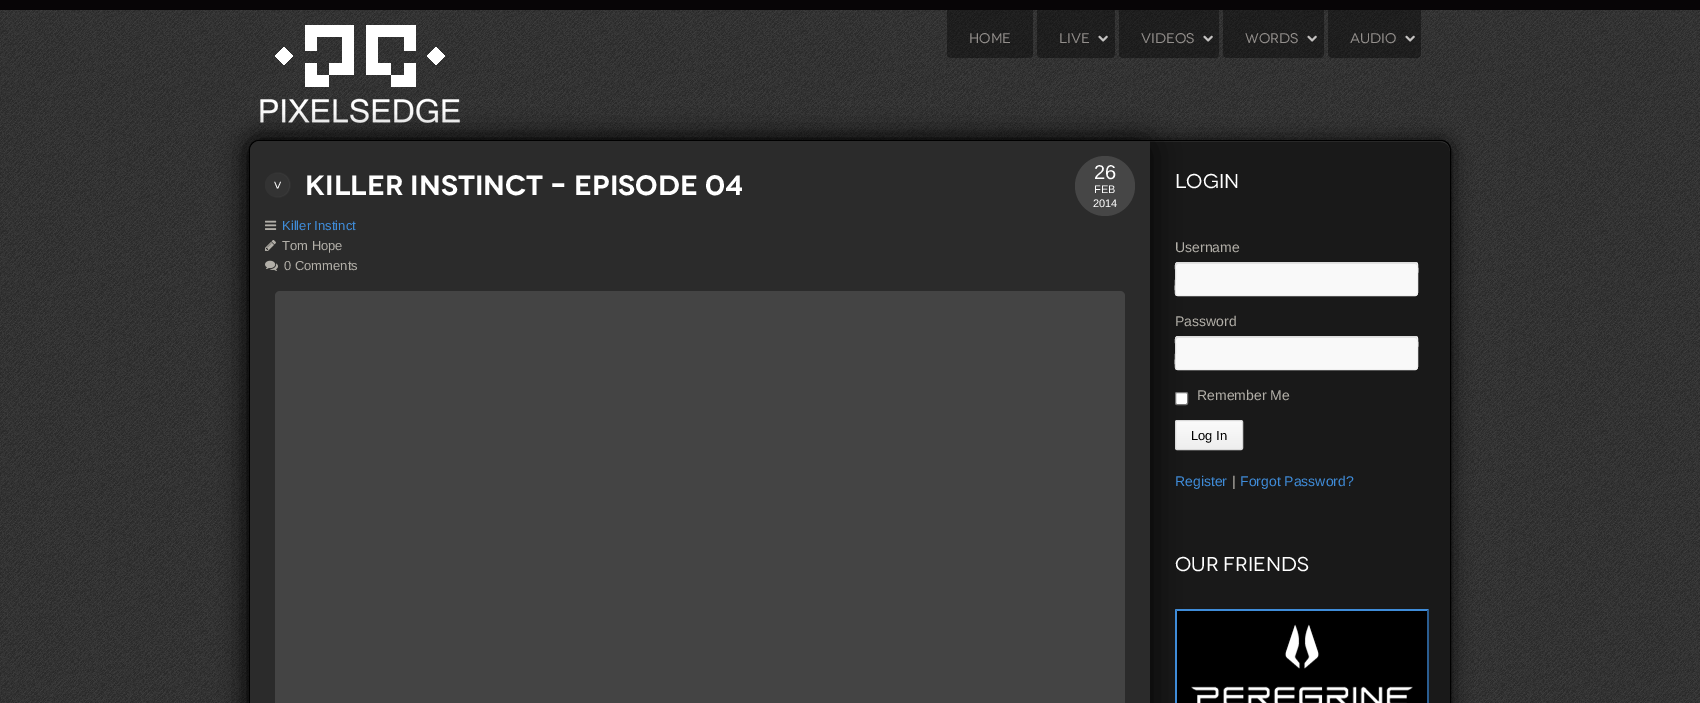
%!PS-Adobe-3.0
%%BoundingBox: 0 0 1700 703
%%LanguageLevel: 3
%%Pages: 1
%%EndComments
%%BeginProlog
/setalpha { dup .setfillconstantalpha .setstrokeconstantalpha } def
/rrect { 5 dict begin { /r /h /w /y /x } { exch def } forall
  x r add y moveto x w add y 2 copy h add r arct x w add y h add x 1 index r arct
  x y h add x y r arct x y 2 copy exch w add exch r arct closepath end } def
/softshadow { 12 dict begin { /a /b /q /h /w /y /x } { exch def } forall gsave /was 0 def
  9 -2 -9 { dup b mul 4 div /e exch def 1 sub .425 mul 2.718 exch exp 1 add a .99 .min exch div /now exch def
    1 1 now sub 1 was sub div sub setalpha /was now def
    w h .min e 2 mul add 0 gt { x e sub y e sub w e 2 mul add h e 2 mul add
      q e add b .6 mul add w h .min 2 div e add .min 0 .max rrect fill } if } for grestore end } def
/drawimage { 5 dict begin { /h /w /y /x /name } { exch def } forall
  gsave x y translate w h scale
  w h 8 [w 0 0 h 0 0] name (r) file false 3 colorimage grestore end } def
%%EndProlog
%%BeginSetup
<< /PageSize [1700 703] /PageUsesTransparency true >> setpagedevice
%%EndSetup
%%Page: 1 1
0 .pushpdf14devicefilter
0 703 translate 1 -1 scale
4 setmiterlimit
1 setgray
0 0 1700 703 rectfill
(images/1.raw) 0 10 1700 693 drawimage
0.027 0.02 0.024 setrgbcolor
0 0 1700 10 rectfill
(images/2.raw) 260 25 200 98 drawimage
0.4 setalpha
0 setgray
newpath 947 10 moveto 1033 10 lineto 1033 54 lineto 1033 56 1031 58 1029 58 curveto 951 58 lineto 949 58 947 56 947 54 curveto closepath fill
newpath 1037 10 moveto 1115 10 lineto 1115 54 lineto 1115 56 1113 58 1111 58 curveto 1041 58 lineto 1039 58 1037 56 1037 54 curveto closepath fill
1 setalpha
(images/3.raw) 1098 35 10 7 drawimage
0.4 setalpha
newpath 1119 10 moveto 1219 10 lineto 1219 54 lineto 1219 56 1217 58 1215 58 curveto 1123 58 lineto 1121 58 1119 56 1119 54 curveto closepath fill
1 setalpha
(images/4.raw) 1203 35 10 7 drawimage
0.4 setalpha
newpath 1223 10 moveto 1324 10 lineto 1324 54 lineto 1324 56 1322 58 1320 58 curveto 1227 58 lineto 1225 58 1223 56 1223 54 curveto closepath fill
1 setalpha
(images/5.raw) 1307 35 10 7 drawimage
0.4 setalpha
newpath 1328 10 moveto 1421 10 lineto 1421 54 lineto 1421 56 1419 58 1417 58 curveto 1332 58 lineto 1330 58 1328 56 1328 54 curveto closepath fill
1 setalpha
(images/6.raw) 1405 35 10 7 drawimage
249 140 1202 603 10 10 0.8 softshadow
0.098 setgray
249 140 1202 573 10 rrect fill
0.216 setgray
newpath 259 142 moveto 1441 142 lineto 1446 142 1450 146 1450 151 curveto 1450 150 lineto 1450 145 1446 141 1441 141 curveto 259 141 lineto 254 141 250 145 250 150 curveto 250 151 lineto 250 146 254 142 259 142 curveto closepath fill
0 setgray
249.5 140.5 1201 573 9.5 rrect stroke
250 141 900 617 10 15 0.8 softshadow
0.169 setgray
newpath 260 141 moveto 1150 141 lineto 1150 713 lineto 260 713 lineto 254.5 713 250 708.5 250 703 curveto 250 151 lineto 250 145.5 254.5 141 260 141 curveto closepath fill
0.882 setgray
266 173 24 24 12 0.5 0.1 softshadow
0.2 setgray
newpath 289 185 moveto 289 200.5 265 200.5 265 185 curveto 265 169.5 289 169.5 289 185 curveto closepath fill
0.275 setgray
newpath 1105 186 30 0 360 arc closepath fill
(images/7.raw) 265 220 12 10 drawimage
(images/8.raw) 265 240 11 11 drawimage
(images/9.raw) 265 260 13 11 drawimage
0.267 setgray
275 291 850 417 5 rrect fill
0.976 setgray
1175 262 243 34 3 rrect fill
0.902 setgray
newpath 1178 264 moveto 1415 264 lineto 1416 264 1417 265 1417 266 curveto 1417 264 lineto 1415 263 lineto 1178 263 lineto 1176 263 1176 265 1176 266 curveto 1176 265 1177 264 1178 264 curveto closepath fill
0.945 setgray
newpath 1417 263 moveto 1418.5 265 1417.5 276.5 1417.5 279 curveto 1417.5 288.5 lineto 1417.5 290 1418.5 295.5 1415 295.5 curveto 1177.5 295.5 lineto 1176 295 lineto stroke
0.867 setgray
newpath 1176 295 moveto 1174.5 293 1175.5 281.5 1175.5 279 curveto 1175.5 269.5 lineto 1175.5 268 1174.5 262.5 1178 262.5 curveto 1415.5 262.5 lineto 1417 263 lineto stroke
0.976 setgray
1175 336 243 34 3 rrect fill
0.902 setgray
newpath 1178 338 moveto 1415 338 lineto 1416 338 1417 339 1417 340 curveto 1417 338 lineto 1415 337 lineto 1178 337 lineto 1176 337 1176 339 1176 340 curveto 1176 339 1177 338 1178 338 curveto closepath fill
0.945 setgray
newpath 1417 337 moveto 1418.5 339 1417.5 350.5 1417.5 353 curveto 1417.5 362.5 lineto 1417.5 364 1418.5 369.5 1415 369.5 curveto 1177.5 369.5 lineto 1176 369 lineto stroke
0.867 setgray
newpath 1176 369 moveto 1174.5 367 1175.5 355.5 1175.5 353 curveto 1175.5 343.5 lineto 1175.5 342 1174.5 336.5 1178 336.5 curveto 1415.5 336.5 lineto 1417 337 lineto stroke
1 setgray
1175.5 392.5 12 12 1.5 rrect gsave fill grestore
0.463 setgray
stroke
gsave
1175 420 68 30 2 rrect clip newpath
gsave newpath 1175 421 moveto 1243 421 lineto 1243 449 lineto 1175 449 lineto closepath clip newpath
<< /ShadingType 2 /ColorSpace /DeviceRGB /Coords [1209 421 1209 449] /Extend [true true] /Function << /FunctionType 2 /Domain [0 1] /C0 [0.984 0.984 0.984] /C1 [0.933 0.933 0.933] /N 1 >> >> shfill grestore
grestore
0.5 setalpha
1 setgray
newpath 1177 422 moveto 1241 422 lineto 1242 422 1242 422 1242 423 curveto 1242 418 1234 421 1230 421 curveto 1188 421 lineto 1184 421 1176 418 1176 423 curveto 1176 422 1176 422 1177 422 curveto closepath fill
1 setalpha
0.851 setgray
1175.5 420.5 67 29 1.5 rrect stroke
0.247 0.549 0.851 setrgbcolor
newpath 1175 609 moveto 1429 609 lineto 1427 611 lineto 1177 611 lineto closepath fill
newpath 1175 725 moveto 1175 609 lineto 1177 611 lineto 1177 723 lineto closepath fill
(images/10.raw) 1177 611 250 92 drawimage
0.165 0.365 0.569 setrgbcolor
newpath 1429 609 moveto 1429 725 lineto 1427 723 lineto 1427 611 lineto closepath fill
/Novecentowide-Regular [14 0 0 -14 0 0] selectfont
0.576 0.561 0.549 setrgbcolor
969 43 moveto (HOME) show
1059 43 moveto (LIVE) show
1141 43 moveto (VIDEOS) show
1245 43 moveto (WORDS) show
1350 43 moveto (AUDIO) show
/LiberationSans-Regular [14 0 0 -14 0 0] selectfont
1 setgray
gsave 273 181 translate 90 rotate 0 0 moveto (>) show grestore
/Novecentowide-SemiBold [28 0 0 -28 0 0] selectfont
305 195 moveto (Killer instinct – Episode 04) show
/LiberationSans-Regular [20 0 0 -20 0 0] selectfont
1094 179 moveto (26) show
/LiberationSans-Regular [11 0 0 -11 0 0] selectfont
1094 193 moveto (FEB) show
1093 207 moveto (2014) show
/LiberationSans-Regular [13 0 0 -13 0 0] selectfont
0.247 0.549 0.851 setrgbcolor
282 230 moveto (Killer Instinct) show
0.698 0.686 0.659 setrgbcolor
282 250 moveto (Tom Hope) show
284 270 moveto (0 Comments) show
/Novecentowide-Regular [20 0 0 -20 0 0] selectfont
1 setgray
1175 188 moveto (Login) show
/LiberationSans-Regular [14 0 0 -14 0 0] selectfont
0.698 0.686 0.659 setrgbcolor
1175 252 moveto (Username) show
1175 326 moveto (Password) show
1197 400 moveto (Remember Me) show
/LiberationSans-Regular [13 0 0 -13 0 0] selectfont
0 setgray
1191 440 moveto (Log In) show
/LiberationSans-Regular [14 0 0 -14 0 0] selectfont
0.247 0.549 0.851 setrgbcolor
1175 486 moveto (Register) show
0.698 0.686 0.659 setrgbcolor
1232 486 moveto (|) show
0.247 0.549 0.851 setrgbcolor
1240 486 moveto (Forgot Password?) show
/Novecentowide-Regular [20 0 0 -20 0 0] selectfont
1 setgray
1175 571 moveto (Our Friends) show
.poppdf14devicefilter showpage
%%EOF
